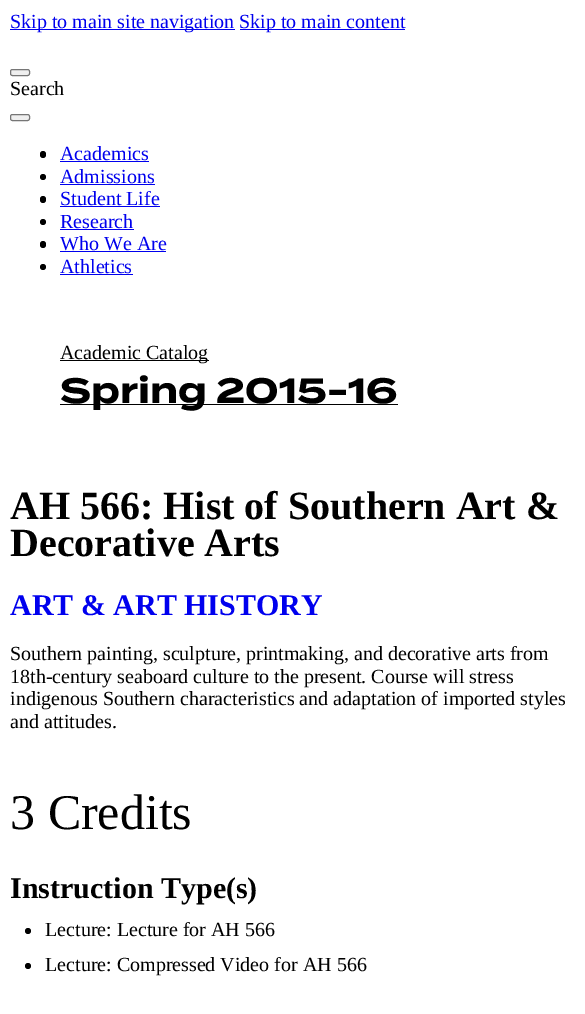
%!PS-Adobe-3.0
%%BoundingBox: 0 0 585 1014
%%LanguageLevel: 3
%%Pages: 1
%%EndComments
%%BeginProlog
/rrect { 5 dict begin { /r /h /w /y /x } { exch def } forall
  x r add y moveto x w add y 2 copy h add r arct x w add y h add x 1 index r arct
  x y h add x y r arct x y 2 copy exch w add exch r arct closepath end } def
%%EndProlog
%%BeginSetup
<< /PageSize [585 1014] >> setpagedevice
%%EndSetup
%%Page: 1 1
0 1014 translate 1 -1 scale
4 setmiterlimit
1 setgray
0 0 585 1014 rectfill
0 0 0.933 setrgbcolor
10 29 225 1 rectfill
240 29 165 1 rectfill
0.937 setgray
10.5 69.5 19 6 2 rrect gsave fill grestore
0.463 setgray
stroke
0.937 setgray
10.5 114.5 19 6 2 rrect gsave fill grestore
0.463 setgray
stroke
0 setgray
40 151 6 7 3 rrect fill
0 0 0.933 setrgbcolor
60 161 89 1 rectfill
0 setgray
newpath 43 177 3 0 360 arc closepath fill
0 0 0.933 setrgbcolor
60 184 95 1 rectfill
0 setgray
40 196 6 7 3 rrect fill
0 0 0.933 setrgbcolor
60 206 100 1 rectfill
0 setgray
newpath 43 222 3 0 360 arc closepath fill
0 0 0.933 setrgbcolor
60 229 74 1 rectfill
0 setgray
40 241 6 7 3 rrect fill
0 0 0.933 setrgbcolor
60 251 106 1 rectfill
0 setgray
newpath 43 267 3 0 360 arc closepath fill
0 0 0.933 setrgbcolor
60 274 73 1 rectfill
0 setgray
60 360 149 1 rectfill
60 404 338 1 rectfill
newpath 28 931 3 0 360 arc closepath fill
newpath 28 966 3 0 360 arc closepath fill
/LiberationSerif-Regular [20 0 0 -20 0 0] selectfont
0 0 0.933 setrgbcolor
10 28 moveto (Skip to main site navigation) show
239 28 moveto (Skip to main content) show
0 setgray
10 95 moveto (Search) show
0 0 0.933 setrgbcolor
60 160 moveto (Academics) show
60 183 moveto (Admissions) show
60 205 moveto (Student Life) show
60 228 moveto (Research) show
60 250 moveto (Who We Are) show
60 273 moveto (Athletics) show
0 setgray
60 359 moveto (Academic Catalog) show
/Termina-Bold [35 0 0 -35 0 0] selectfont
60 403 moveto (Spring 2015-16) show
/LiberationSerif-Bold [40 0 0 -40 0 0] selectfont
10 519 moveto (AH 566: Hist of Southern Art &) show
10 556 moveto (Decorative Arts) show
/LiberationSerif-Bold [30 0 0 -30 0 0] selectfont
0 0 0.933 setrgbcolor
10 615 moveto (ART & ART HISTORY) show
/LiberationSerif-Regular [20 0 0 -20 0 0] selectfont
0 setgray
10 660 moveto (Southern painting, sculpture, printmaking, and decorative arts from) show
10 683 moveto (18th-century seaboard culture to the present. Course will stress) show
10 705 moveto (indigenous Southern characteristics and adaptation of imported styles) show
10 728 moveto (and attitudes.) show
/LiberationSerif-Regular [50 0 0 -50 0 0] selectfont
10 829 moveto (3 Credits) show
/LiberationSerif-Bold [30 0 0 -30 0 0] selectfont
10 898 moveto (Instruction Type\(s\)) show
/LiberationSerif-Regular [20 0 0 -20 0 0] selectfont
45 936 moveto (Lecture: Lecture for AH 566) show
45 971 moveto (Lecture: Compressed Video for AH 566) show
showpage
%%EOF
